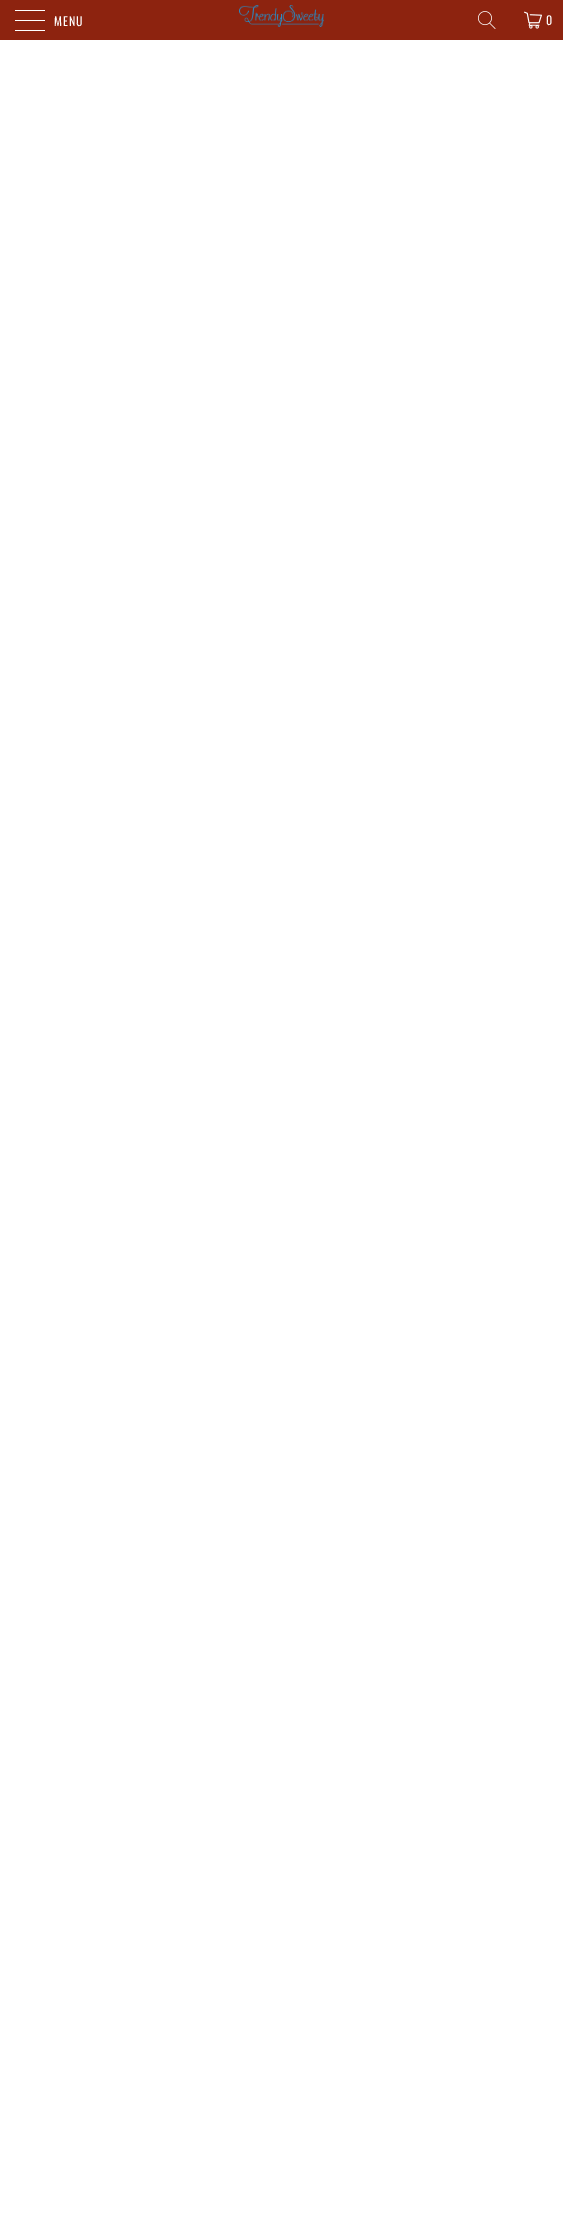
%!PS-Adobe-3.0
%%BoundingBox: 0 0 563 2217
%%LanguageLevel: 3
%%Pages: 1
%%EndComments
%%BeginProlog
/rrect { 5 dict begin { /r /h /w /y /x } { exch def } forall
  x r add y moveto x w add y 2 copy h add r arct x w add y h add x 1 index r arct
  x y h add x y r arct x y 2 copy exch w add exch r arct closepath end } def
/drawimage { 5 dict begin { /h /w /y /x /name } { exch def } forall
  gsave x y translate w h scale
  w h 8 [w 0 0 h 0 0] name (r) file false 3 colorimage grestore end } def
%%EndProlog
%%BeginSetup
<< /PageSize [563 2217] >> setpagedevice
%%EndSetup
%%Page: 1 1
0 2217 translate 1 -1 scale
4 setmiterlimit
1 setgray
0 0 563 2217 rectfill
0.553 0.137 0.059 setrgbcolor
0 0 563 40 rectfill
1 setgray
15 10 30 1 0.5 rrect fill
15 20 30 1 0.5 rrect fill
15 30 30 1 0.5 rrect fill
(images/1.raw) 239 5 85 22 drawimage
(images/2.raw) 478 11 18 18 drawimage
(images/3.raw) 524 11 18 18 drawimage
/Oswald-Regular [12 0 0 -12 0 0] selectfont
54 26 moveto 1 0 (MENU) ashow
546 25 moveto 1 0 (0) ashow
showpage
%%EOF
